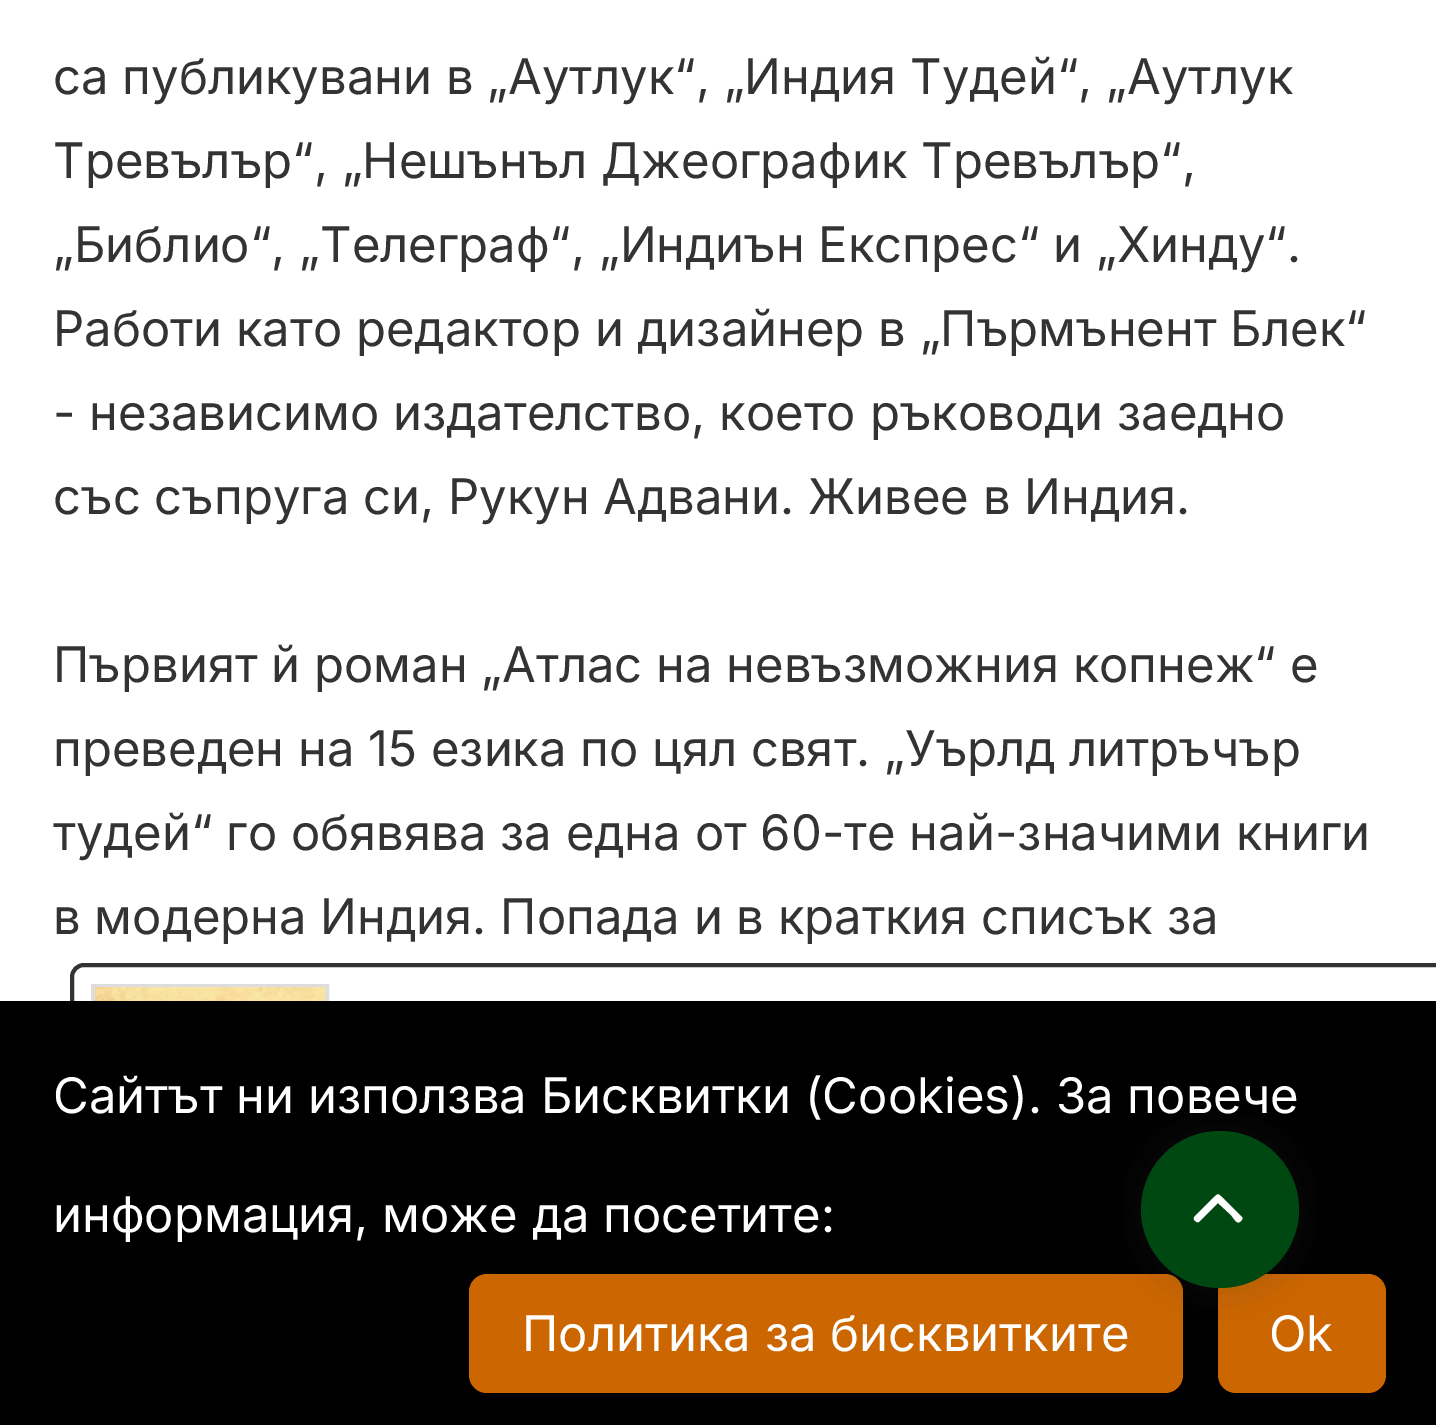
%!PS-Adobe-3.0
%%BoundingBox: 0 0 1436 1425
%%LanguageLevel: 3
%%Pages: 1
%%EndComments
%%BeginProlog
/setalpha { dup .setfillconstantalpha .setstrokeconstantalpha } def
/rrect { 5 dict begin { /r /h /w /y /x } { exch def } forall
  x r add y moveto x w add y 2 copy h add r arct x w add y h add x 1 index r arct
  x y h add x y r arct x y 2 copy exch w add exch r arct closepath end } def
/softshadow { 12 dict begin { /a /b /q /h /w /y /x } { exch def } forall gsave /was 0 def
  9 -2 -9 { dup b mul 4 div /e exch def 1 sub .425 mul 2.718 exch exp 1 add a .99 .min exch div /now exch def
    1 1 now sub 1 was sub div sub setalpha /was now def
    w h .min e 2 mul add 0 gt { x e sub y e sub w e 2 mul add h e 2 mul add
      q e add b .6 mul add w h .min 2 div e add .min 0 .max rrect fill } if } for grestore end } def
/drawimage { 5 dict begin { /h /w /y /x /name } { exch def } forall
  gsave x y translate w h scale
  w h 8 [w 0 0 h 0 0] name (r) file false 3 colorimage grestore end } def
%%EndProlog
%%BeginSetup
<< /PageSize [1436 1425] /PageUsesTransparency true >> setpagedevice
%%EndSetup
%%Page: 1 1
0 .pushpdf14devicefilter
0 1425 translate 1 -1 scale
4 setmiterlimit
1 setgray
0 0 1436 1425 rectfill
0.2 setgray
4 setlinewidth
72 965 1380 391 12 rrect stroke
0.867 setgray
93 986 234 349 rectstroke
(images/1.raw) 95 987 231 14 drawimage
0 setgray
0 1001 1436 424 rectfill
0.8 0.4 0 setrgbcolor
469 1274 714 119 18 rrect fill
1218 1274 168 119 18 rrect fill
0.196 setgray
1141 1131 158 157 78.5 26 0.2 softshadow
0 0.282 0.071 setrgbcolor
1141 1131 158 157 78.5 rrect fill
1 setgray
newpath 1242 1217 moveto 1243 1218 1242 1220 1241 1221 curveto 1237 1225 1235 1220 1231 1215 curveto 1218 1203 lineto 1199 1222 lineto 1197 1223 1196 1221 1195 1221 curveto 1192 1217 1195 1217 1198 1213 curveto 1213 1198 lineto 1219 1193 1217 1193 1223 1198 curveto closepath fill
/Inter-Regular [49 0 0 -49 0 0] selectfont
0.2 setgray
53 94 moveto (са публикувани в „Аутлук“, „Индия Тудей“, „Аутлук) show
53 178 moveto (Тревълър“, „Нешънъл Джеографик Тревълър“,) show
53 262 moveto („Библио“, „Телеграф“, „Индиън Експрес“ и „Хинду“.) show
53 346 moveto (Работи като редактор и дизайнер в „Пърмънент Блек“) show
53 430 moveto (- независимо издателство, което ръководи заедно) show
53 514 moveto (със съпруга си, Рукун Адвани. Живее в Индия.) show
53 682 moveto (Първият й роман „Атлас на невъзможния копнеж“ е) show
53 766 moveto (преведен на 15 езика по цял свят. „Уърлд литръчър) show
53 850 moveto (тудей“ го обявява за една от 60-те най-значими книги) show
53 934 moveto (в модерна Индия. Попада и в краткия списък за) show
1 setgray
53 1113 moveto (Сайтът ни използва Бисквитки \(Cookies\). За повече) show
53 1232 moveto (информация, може да посетите:) show
522 1351 moveto (Политика за бисквитките) show
1269 1351 moveto (Ok) show
.poppdf14devicefilter showpage
%%EOF
